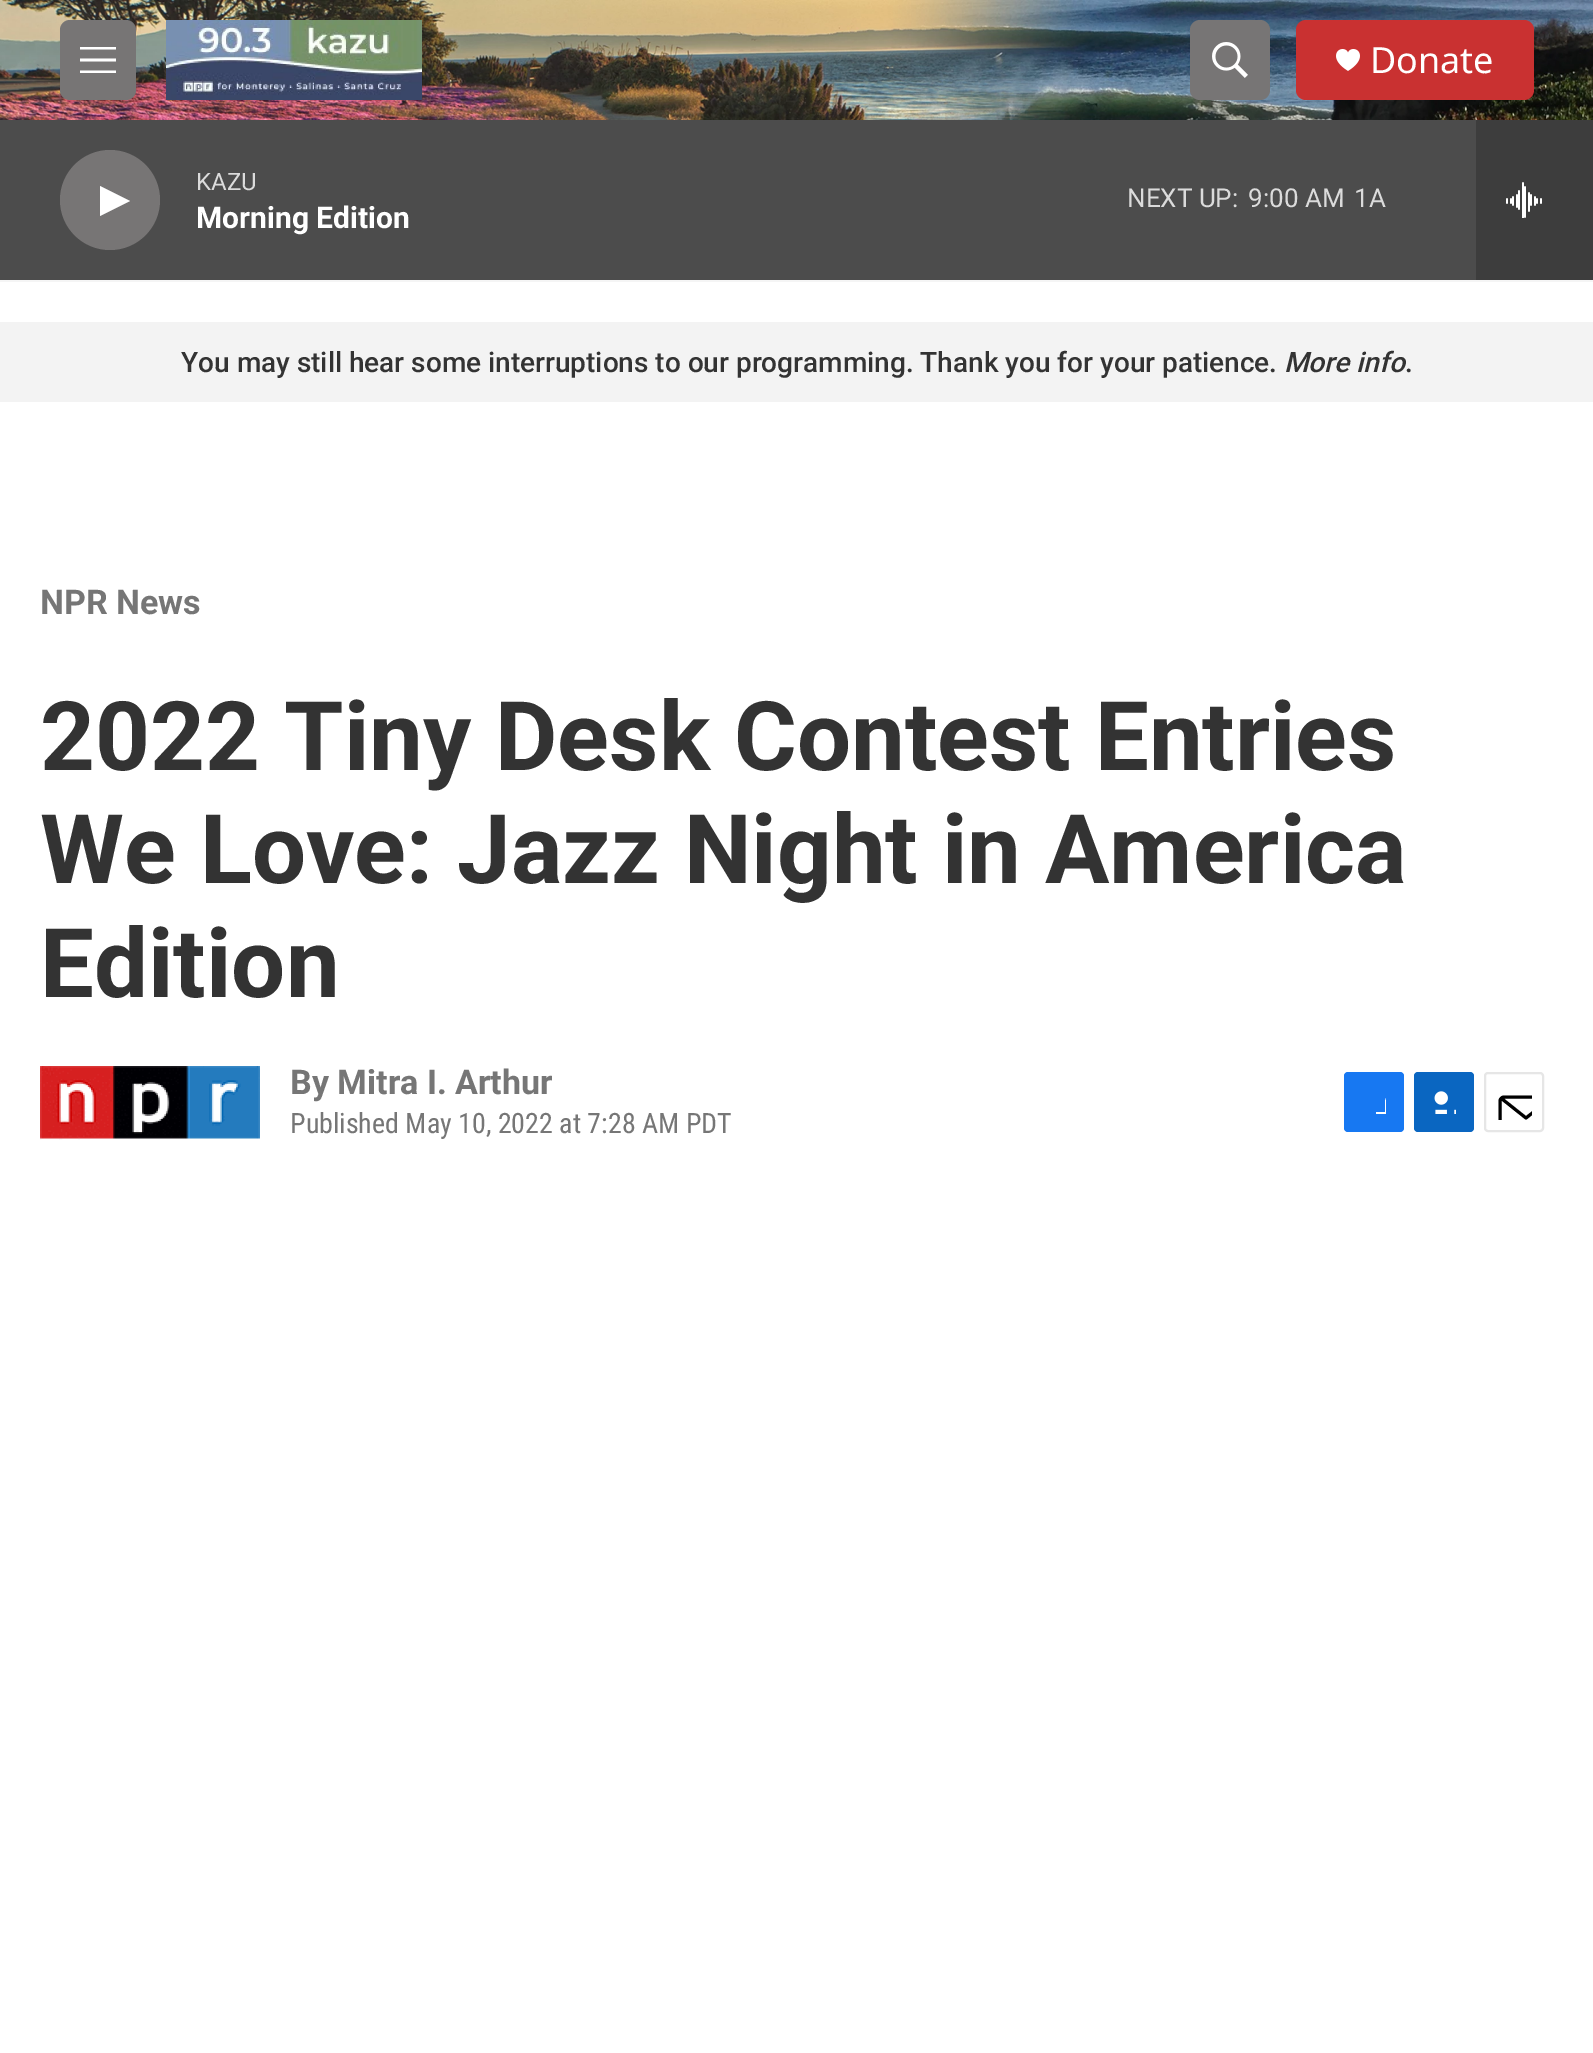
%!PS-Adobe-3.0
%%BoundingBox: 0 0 1593 2053
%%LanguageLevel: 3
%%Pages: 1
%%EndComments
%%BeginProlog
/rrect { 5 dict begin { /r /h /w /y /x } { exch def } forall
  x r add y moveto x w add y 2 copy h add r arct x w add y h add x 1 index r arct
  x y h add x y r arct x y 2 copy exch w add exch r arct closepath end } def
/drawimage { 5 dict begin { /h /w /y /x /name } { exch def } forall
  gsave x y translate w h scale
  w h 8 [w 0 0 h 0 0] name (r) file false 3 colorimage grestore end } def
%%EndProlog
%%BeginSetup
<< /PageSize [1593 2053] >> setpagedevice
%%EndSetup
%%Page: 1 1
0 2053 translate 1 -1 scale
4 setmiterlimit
1 setgray
0 0 1593 2053 rectfill
0.961 setgray
0 280 1593 2 rectfill
(images/1.raw) 0 0 1593 120 drawimage
0.467 0.459 0.459 setrgbcolor
60 20 76 80 10 rrect fill
1 setgray
newpath 80 61.5 moveto 80 58.5 lineto 116 58.5 lineto 116 61.5 lineto closepath 80 49.5 moveto 80 47 lineto 116 47 lineto 116 49.5 lineto closepath 80 73 moveto 80 70.5 lineto 116 70.5 lineto 116 73 lineto closepath eofill
(images/2.raw) 166 20 256 80 drawimage
0.467 0.459 0.459 setrgbcolor
1190 20 80 80 10 rrect fill
(images/3.raw) 1212 42 36 36 drawimage
0.788 0.192 0.192 setrgbcolor
1296 20 238 80 10 rrect fill
(images/4.raw) 1336 49 24 22 drawimage
0.298 setgray
0 120 1476 160 rectfill
0.467 0.459 0.459 setrgbcolor
newpath 110 200 50 0 360 arc closepath fill
1 setgray
newpath 100 186 moveto 130 201 lineto 100 216 lineto closepath fill
0.239 setgray
1476 120 117 160 rectfill
(images/5.raw) 1506 182 36 36 drawimage
0.953 setgray
0 322 1593 80 rectfill
(images/6.raw) 40 1066 220 74 drawimage
0.09 0.471 0.949 setrgbcolor
1344 1072 60 60 4 rrect fill
gsave
1362 1090 24 24 rectclip
1 setgray
newpath 1395 1132 moveto 1385 1132 lineto 1385 1122 lineto 1376 1122 lineto 1376 1112 lineto 1385 1112 lineto 1385 1101 lineto 1387 1092 1396 1090 1404 1091 curveto 1404 1100 lineto 1393 1100 1395 1103 1395 1112 curveto 1404 1112 lineto 1404 1117 lineto 1403 1122 lineto 1395 1122 lineto closepath fill
grestore
0.039 0.4 0.757 setrgbcolor
1414 1072 60 60 4 rrect fill
(images/7.raw) 1434 1091 22 23 drawimage
0.902 setgray
2 setlinewidth
1485 1073 58 58 3 rrect stroke
gsave
1496 1084 36 36 rectclip
0 setgray
3 setlinewidth
1 setlinecap
1 setlinejoin
newpath 1552 1128 moveto 1552 1130 1550 1131.5 1548 1131.5 curveto 1504 1131.5 lineto 1502 1131.5 1500 1130 1500 1128 curveto 1500 1101 lineto 1500 1099 1502 1097 1504 1097 curveto 1548 1097 lineto 1550 1097 1552 1099 1552 1101 curveto closepath 1550.5 1098.5 moveto 1526 1118 lineto 1501.5 1098.5 lineto stroke
grestore
/NotoSans-Regular [36 0 0 -36 0 0] selectfont
1 setgray
1370 73 moveto (Donate) show
/Roboto-Regular [24 0 0 -24 0 0] selectfont
0.859 setgray
196 190 moveto (KAZU) show
/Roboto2-Bold [30 0 0 -30 0 0] selectfont
1 setgray
196 228 moveto (Morning Edition) show
/Roboto-Regular [26 0 0 -26 0 0] selectfont
0.859 setgray
1127 207 moveto (NEXT UP:) show
1248 207 moveto (9:00 AM) show
1354 207 moveto (1A) show
/Roboto-Medium [28 0 0 -28 0 0] selectfont
0.2 setgray
181 372 moveto (You may still hear some interruptions to our programming. Thank you for your patience.) show
/Roboto-MediumItalic [28 0 0 -28 0 0] selectfont
1284 372 moveto (More info) show
/Roboto-Medium [28 0 0 -28 0 0] selectfont
1405 372 moveto (.) show
/Roboto-Bold [34 0 0 -34 0 0] selectfont
0.463 setgray
40 614 moveto (NPR News) show
/Roboto-Bold [96 0 0 -96 0 0] selectfont
0.2 setgray
40 770 moveto (2022 Tiny Desk Contest Entries) show
40 883 moveto (We Love: Jazz Night in America) show
40 997 moveto (Edition) show
/Roboto-Bold [34 0 0 -34 0 0] selectfont
0.463 setgray
290 1094 moveto (By Mitra I. Arthur) show
/RobotoCondensed-Regular [28 0 0 -28 0 0] selectfont
290 1133 moveto (Published May 10, 2022 at 7:28 AM PDT) show
showpage
%%EOF
